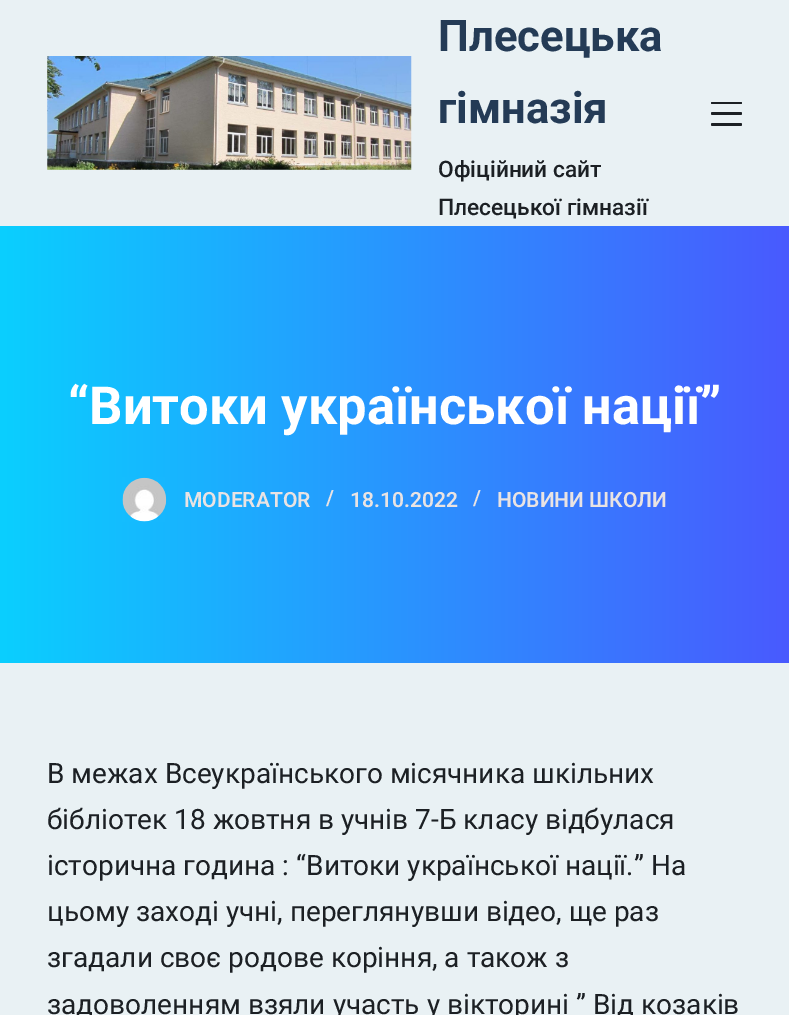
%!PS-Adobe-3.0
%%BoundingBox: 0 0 789 1015
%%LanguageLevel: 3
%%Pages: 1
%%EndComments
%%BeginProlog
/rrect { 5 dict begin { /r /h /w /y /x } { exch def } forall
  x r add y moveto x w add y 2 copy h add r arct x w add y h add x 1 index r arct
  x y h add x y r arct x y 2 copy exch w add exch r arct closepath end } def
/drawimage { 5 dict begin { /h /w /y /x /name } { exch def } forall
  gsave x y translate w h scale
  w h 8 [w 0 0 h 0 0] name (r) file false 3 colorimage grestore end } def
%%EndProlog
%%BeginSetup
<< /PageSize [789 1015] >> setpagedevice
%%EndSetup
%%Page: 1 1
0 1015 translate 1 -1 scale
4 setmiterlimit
0.914 0.945 0.957 setrgbcolor
0 0 789 1015 rectfill
(images/1.raw) 47 56 365 114 drawimage
0.11 0.125 0.141 setrgbcolor
711 102 31 2 1 rrect fill
711 112 31 3 1.5 rrect fill
711 123 31 3 1.5 rrect fill
gsave newpath 0 226 moveto 789 226 lineto 789 663 lineto 0 663 lineto closepath clip newpath
<< /ShadingType 2 /ColorSpace /DeviceRGB /Coords [0 445 789 445] /Extend [true true] /Function << /FunctionType 2 /Domain [0 1] /C0 [0.039 0.812 0.996] /C1 [0.286 0.353 1] /N 1 >> >> shfill grestore
(images/2.raw) 122 477 45 45 drawimage
/Roboto-Bold [43.75 0 0 -43.75 0 0] selectfont
0.141 0.231 0.337 setrgbcolor
438 51 moveto (Плесецька) show
438 123 moveto (гімназія) show
/Roboto-Medium [22.75 0 0 -22.75 0 0] selectfont
0.11 0.125 0.141 setrgbcolor
438 177 moveto (Офіційний сайт) show
438 215 moveto (Плесецької гімназії) show
/Roboto-Bold [52.5 0 0 -52.5 0 0] selectfont
1 setgray
68 424 moveto (“Витоки української нації”) show
/Roboto-SemiBold [21 0 0 -21 0 0] selectfont
0.914 0.89 0.89 setrgbcolor
184 507 moveto (MODERATOR) show
326 505 moveto (/) show
350 507 moveto (18.10.2022) show
473 505 moveto (/) show
497 507 moveto (НОВИНИ ШКОЛИ) show
/Roboto-Regular [28 0 0 -28 0 0] selectfont
0.11 0.125 0.141 setrgbcolor
47 783 moveto (В межах Всеукраїнського місячника шкільних) show
47 829 moveto (бібліотек 18 жовтня в учнів 7-Б класу відбулася) show
47 875 moveto (історична година : “Витоки української нації.” На) show
47 921 moveto (цьому заході учні, переглянувши відео, ще раз) show
47 967 moveto (згадали своє родове коріння, а також з) show
47 1014 moveto (задоволенням взяли участь у вікторині ” Від козаків) show
showpage
%%EOF
